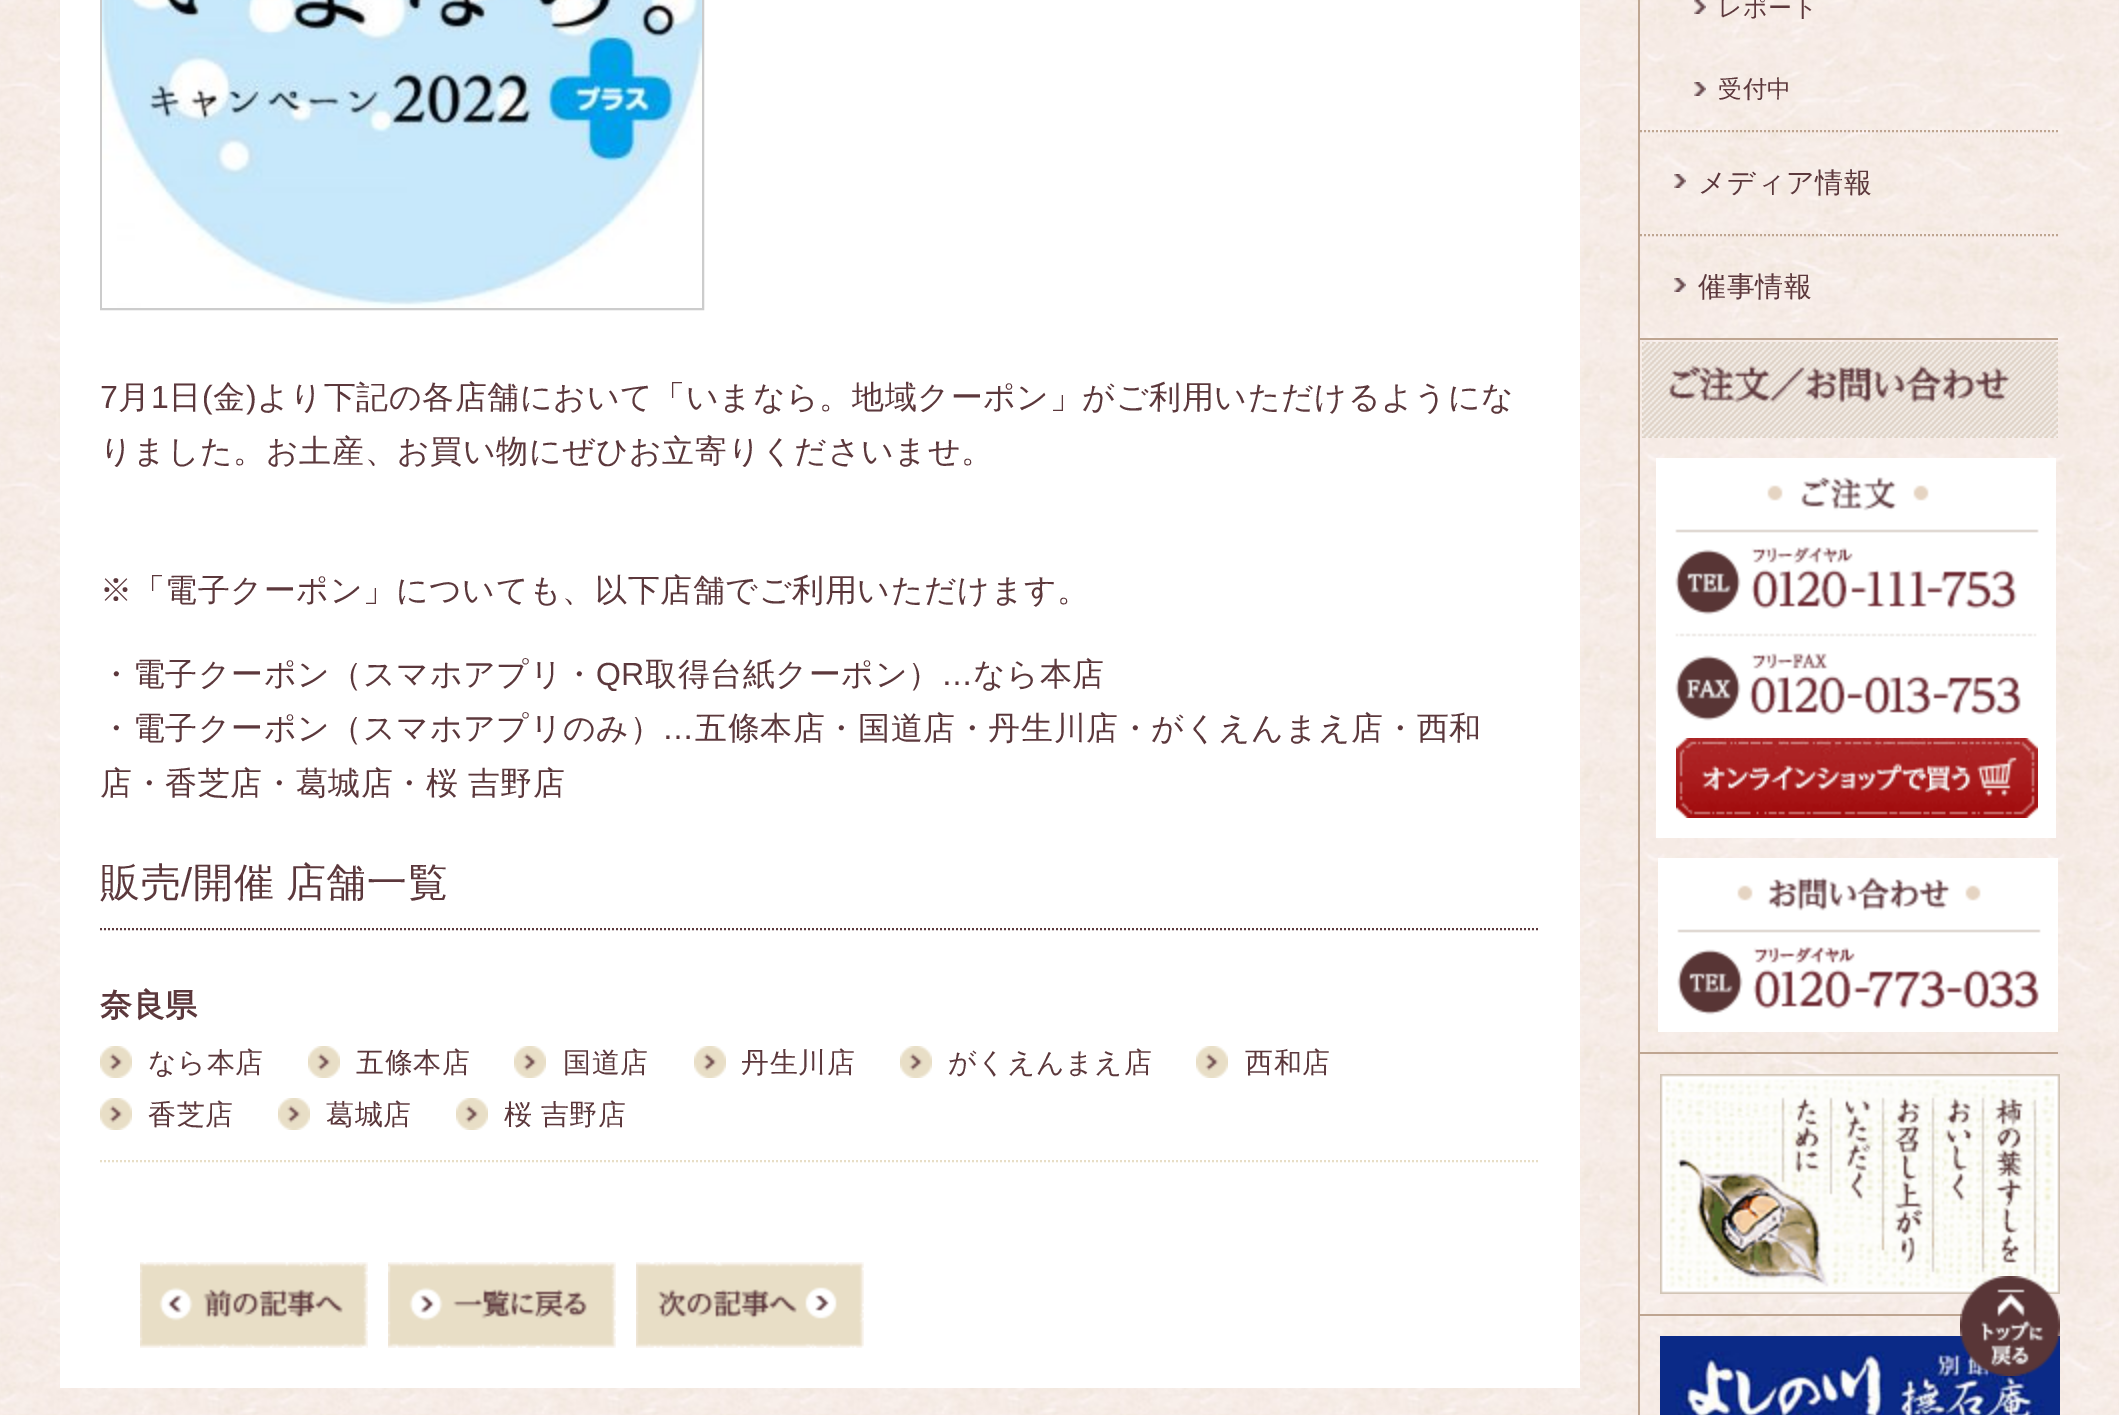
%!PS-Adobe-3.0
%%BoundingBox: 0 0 2119 1415
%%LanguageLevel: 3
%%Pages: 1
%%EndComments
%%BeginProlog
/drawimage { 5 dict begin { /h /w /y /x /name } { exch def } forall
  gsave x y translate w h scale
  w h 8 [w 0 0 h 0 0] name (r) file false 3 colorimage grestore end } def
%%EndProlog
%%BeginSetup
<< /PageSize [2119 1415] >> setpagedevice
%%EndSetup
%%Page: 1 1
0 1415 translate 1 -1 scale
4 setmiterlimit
1 setgray
0 0 2119 1415 rectfill
(images/1.raw) 0 0 2119 1415 drawimage
0.745 0.647 0.569 setrgbcolor
1638 0 2 1415 rectfill
2 setlinewidth
[2 2] 0 setdash
newpath 1640 131 moveto 2058 131 lineto stroke
(images/2.raw) 1694 0 12 14 drawimage
(images/3.raw) 1694 82 12 14 drawimage
newpath 1640 235 moveto 2058 235 lineto stroke
(images/4.raw) 1674 174 12 14 drawimage
(images/5.raw) 1674 278 12 14 drawimage
1640 338 418 2 rectfill
(images/6.raw) 1642 342 416 96 drawimage
(images/7.raw) 1656 458 400 380 drawimage
(images/8.raw) 1676 738 362 80 drawimage
(images/9.raw) 1658 858 400 174 drawimage
1640 1052 418 2 rectfill
(images/10.raw) 1660 1074 400 220 drawimage
1640 1314 418 2 rectfill
(images/11.raw) 1660 1336 400 79 drawimage
1 setgray
60 0 1520 1388 rectfill
0.8 setgray
[] 0 setdash
101 -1 602 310 rectstroke
(images/12.raw) 102 0 600 308 drawimage
0.361 0.22 0.235 setrgbcolor
[2 2] 0 setdash
newpath 100 929 moveto 1540 929 lineto stroke
0.91 0.871 0.776 setrgbcolor
newpath 100 1161 moveto 1540 1161 lineto stroke
(images/13.raw) 100 1046 32 32 drawimage
(images/13.raw) 308 1046 32 32 drawimage
(images/13.raw) 514 1046 32 32 drawimage
(images/13.raw) 694 1046 32 32 drawimage
(images/13.raw) 900 1046 32 32 drawimage
(images/13.raw) 1196 1046 32 32 drawimage
(images/13.raw) 100 1098 32 32 drawimage
(images/13.raw) 278 1098 32 32 drawimage
(images/13.raw) 456 1098 32 32 drawimage
(images/14.raw) 140 1262 228 86 drawimage
(images/15.raw) 388 1262 228 86 drawimage
(images/16.raw) 636 1262 228 86 drawimage
(images/17.raw) 1960 1276 100 100 drawimage
/WenQuanYiZenHei-Medium [24 0 0 -24 0 0] selectfont
0.361 0.22 0.235 setrgbcolor
1718 16 moveto 0.6 0 (レポート) ashow
1718 97 moveto 0.6 0 (受付中) ashow
/WenQuanYiZenHei-Medium [28 0 0 -28 0 0] selectfont
1698 192 moveto 0.6 0 (メディア情報) ashow
1698 296 moveto 0.6 0 (催事情報) ashow
/LiberationSans-Regular [32 0 0 -32 0 0] selectfont
100 408 moveto 0.6 0 (7) ashow
/WenQuanYiZenHei-Medium [32 0 0 -32 0 0] selectfont
118 408 moveto 0.6 0 (月) ashow
/LiberationSans-Regular [32 0 0 -32 0 0] selectfont
151 408 moveto 0.6 0 (1) ashow
/WenQuanYiZenHei-Medium [32 0 0 -32 0 0] selectfont
169 408 moveto 0.6 0 (日) ashow
/LiberationSans-Regular [32 0 0 -32 0 0] selectfont
202 408 moveto 0.6 0 (\() ashow
/WenQuanYiZenHei-Medium [32 0 0 -32 0 0] selectfont
213 408 moveto 0.6 0 (金) ashow
/LiberationSans-Regular [32 0 0 -32 0 0] selectfont
246 408 moveto 0.6 0 (\)) ashow
/WenQuanYiZenHei-Medium [32 0 0 -32 0 0] selectfont
257 408 moveto 0.6 0 (より下記の各店舗において「いまなら。地域クーポン」がご利用いただけるようにな) ashow
100 462 moveto 0.6 0 (りました。お土産、お買い物にぜひお立寄りくださいませ。) ashow
100 601 moveto 0.6 0 (※「電子クーポン」についても、以下店舗でご利用いただけます。) ashow
100 685 moveto 0.6 0 (・電子クーポン（スマホアプリ・) ashow
/LiberationSans-Regular [32 0 0 -32 0 0] selectfont
596 685 moveto 0.6 0 (QR) ashow
/WenQuanYiZenHei-Medium [32 0 0 -32 0 0] selectfont
645 685 moveto 0.6 0 (取得台紙クーポン）) ashow
/LiberationSans-Regular [32 0 0 -32 0 0] selectfont
941 685 moveto 0.6 0 (…) ashow
/WenQuanYiZenHei-Medium [32 0 0 -32 0 0] selectfont
973 685 moveto 0.6 0 (なら本店) ashow
100 739 moveto 0.6 0 (・電子クーポン（スマホアプリのみ）) ashow
/LiberationSans-Regular [32 0 0 -32 0 0] selectfont
662 739 moveto 0.6 0 (…) ashow
/WenQuanYiZenHei-Medium [32 0 0 -32 0 0] selectfont
695 739 moveto 0.6 0 (五條本店・国道店・丹生川店・がくえんまえ店・西和) ashow
100 794 moveto -1 0 32 0.6 0 (店・香芝店・葛城店・桜 吉野店) awidthshow
/WenQuanYiZenHei-Medium [40 0 0 -40 0 0] selectfont
100 896 moveto 0.6 0 (販売) ashow
/LiberationSans-Regular [40 0 0 -40 0 0] selectfont
181 896 moveto 0.6 0 (/) ashow
/WenQuanYiZenHei-Medium [40 0 0 -40 0 0] selectfont
193 896 moveto -1 0 32 0.6 0 (開催 店舗一覧) awidthshow
/WenQuanYiZenHei-Bold [32 0 0 -32 0 0] selectfont
100 1016 moveto 0.6 0 (奈良県) ashow
/WenQuanYiZenHei-Medium [28 0 0 -28 0 0] selectfont
148 1072 moveto 0.6 0 (なら本店) ashow
356 1072 moveto 0.6 0 (五條本店) ashow
563 1072 moveto 0.6 0 (国道店) ashow
741 1072 moveto 0.6 0 (丹生川店) ashow
948 1072 moveto 0.6 0 (がくえんまえ店) ashow
1245 1072 moveto 0.6 0 (西和店) ashow
148 1124 moveto 0.6 0 (香芝店) ashow
326 1124 moveto 0.6 0 (葛城店) ashow
504 1124 moveto -1 0 32 0.6 0 (桜 吉野店) awidthshow
showpage
%%EOF
